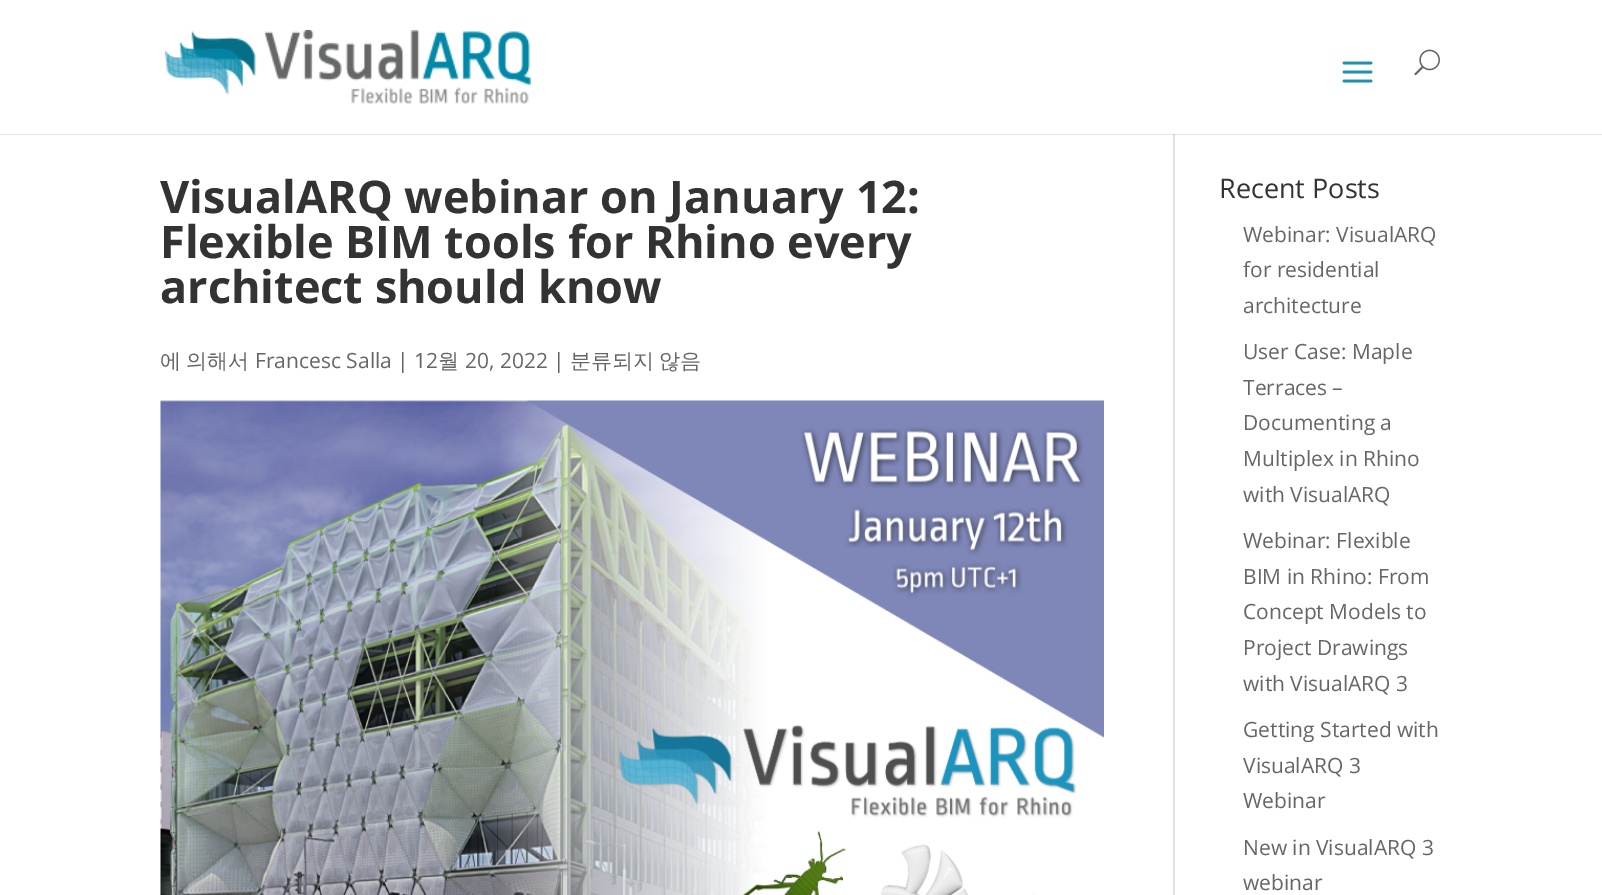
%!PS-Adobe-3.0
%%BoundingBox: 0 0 1602 895
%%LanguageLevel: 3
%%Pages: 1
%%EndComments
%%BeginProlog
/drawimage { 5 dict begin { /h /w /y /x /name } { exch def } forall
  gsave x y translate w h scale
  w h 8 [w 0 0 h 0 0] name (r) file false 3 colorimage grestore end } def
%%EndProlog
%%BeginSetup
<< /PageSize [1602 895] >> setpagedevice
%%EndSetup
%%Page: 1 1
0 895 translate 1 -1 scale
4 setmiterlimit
1 setgray
0 0 1602 895 rectfill
0.902 setgray
0 134 1602 1 rectfill
(images/1.raw) 165 30 366 74 drawimage
(images/2.raw) 1342 61 31 22 drawimage
(images/3.raw) 1414 49 26 27 drawimage
0.886 setgray
1173 135 2 760 rectfill
0.796 setgray
1173 134 2 1 rectfill
(images/4.raw) 160 400 944 495 drawimage
/OpenSans-Bold [45 0 0 -45 0 0] selectfont
0.2 setgray
160 213 moveto (VisualARQ webinar on January 12:) show
160 258 moveto (Flexible BIM tools for Rhino every) show
160 303 moveto (architect should know) show
/WenQuanYiZenHei-Medium [21 0 0 -21 0 0] selectfont
0.4 setgray
160 368 moveto -1 0 32 (에 의해서) widthshow
/OpenSans-Regular [21 0 0 -21 0 0] selectfont
255 368 moveto (Francesc Salla | 12) show
/WenQuanYiZenHei-Medium [21 0 0 -21 0 0] selectfont
438 368 moveto (월) show
/OpenSans-Regular [21 0 0 -21 0 0] selectfont
465 368 moveto (20, 2022 |) show
/WenQuanYiZenHei-Medium [21 0 0 -21 0 0] selectfont
570 368 moveto -1 0 32 (분류되지 않음) widthshow
/OpenSans-Regular [27 0 0 -27 0 0] selectfont
0.2 setgray
1219 198 moveto (Recent Posts) show
/OpenSans-Regular [21 0 0 -21 0 0] selectfont
0.4 setgray
1243 242 moveto (Webinar: VisualARQ) show
1243 277 moveto (for residential) show
1243 313 moveto (architecture) show
1243 359 moveto (User Case: Maple) show
1243 395 moveto (Terraces –) show
1243 430 moveto (Documenting a) show
1243 466 moveto (Multiplex in Rhino) show
1243 502 moveto (with VisualARQ) show
1243 548 moveto (Webinar: Flexible) show
1243 584 moveto (BIM in Rhino: From) show
1243 619 moveto (Concept Models to) show
1243 655 moveto (Project Drawings) show
1243 691 moveto (with VisualARQ 3) show
1243 737 moveto (Getting Started with) show
1243 773 moveto (VisualARQ 3) show
1243 808 moveto (Webinar) show
1243 855 moveto (New in VisualARQ 3) show
1243 890 moveto (webinar) show
showpage
%%EOF
